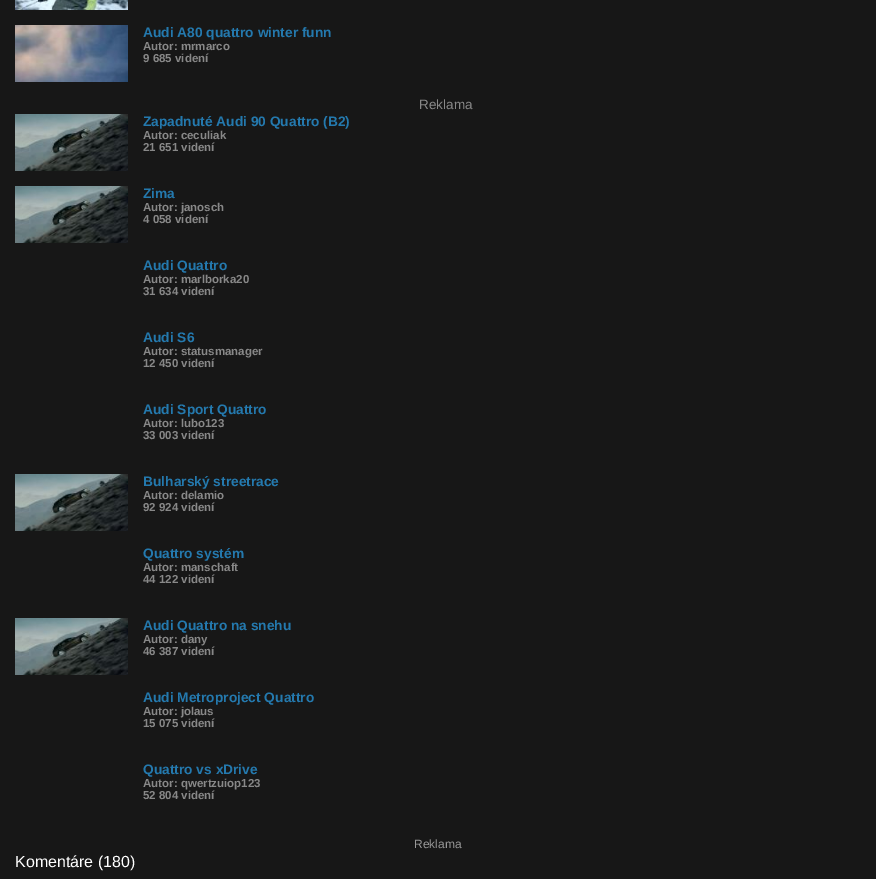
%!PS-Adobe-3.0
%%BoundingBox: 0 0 876 879
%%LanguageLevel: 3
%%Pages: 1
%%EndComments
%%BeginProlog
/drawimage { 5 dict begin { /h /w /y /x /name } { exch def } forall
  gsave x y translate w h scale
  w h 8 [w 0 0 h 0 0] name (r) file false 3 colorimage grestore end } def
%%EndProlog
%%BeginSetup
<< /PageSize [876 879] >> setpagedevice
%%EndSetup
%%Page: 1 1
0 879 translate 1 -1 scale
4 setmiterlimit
0.09 setgray
0 0 876 879 rectfill
(images/1.raw) 15 0 113 10 drawimage
(images/2.raw) 15 25 113 57 drawimage
(images/3.raw) 15 114 113 57 drawimage
(images/3.raw) 15 186 113 57 drawimage
(images/4.raw) 15 474 113 57 drawimage
(images/3.raw) 15 618 113 57 drawimage
/LiberationSans-Bold [13.75 0 0 -13.75 0 0] selectfont
0.141 0.475 0.682 setrgbcolor
143 37 moveto (Audi A80 quattro winter funn) show
/LiberationSans-Bold [11.5 0 0 -11.5 0 0] selectfont
0.533 setgray
143 50 moveto (Autor: mrmarco) show
143 62 moveto (9 685 videní) show
/LiberationSans-Regular [13.5 0 0 -13.5 0 0] selectfont
419 109 moveto (Reklama) show
/LiberationSans-Bold [13.75 0 0 -13.75 0 0] selectfont
0.141 0.475 0.682 setrgbcolor
143 126 moveto (Zapadnuté Audi 90 Quattro \(B2\)) show
/LiberationSans-Bold [11.5 0 0 -11.5 0 0] selectfont
0.533 setgray
143 139 moveto (Autor: ceculiak) show
143 151 moveto (21 651 videní) show
/LiberationSans-Bold [13.75 0 0 -13.75 0 0] selectfont
0.141 0.475 0.682 setrgbcolor
143 198 moveto (Zima) show
/LiberationSans-Bold [11.5 0 0 -11.5 0 0] selectfont
0.533 setgray
143 211 moveto (Autor: janosch) show
143 223 moveto (4 058 videní) show
/LiberationSans-Bold [13.75 0 0 -13.75 0 0] selectfont
0.141 0.475 0.682 setrgbcolor
143 270 moveto (Audi Quattro) show
/LiberationSans-Bold [11.5 0 0 -11.5 0 0] selectfont
0.533 setgray
143 283 moveto (Autor: marlborka20) show
143 295 moveto (31 634 videní) show
/LiberationSans-Bold [13.75 0 0 -13.75 0 0] selectfont
0.141 0.475 0.682 setrgbcolor
143 342 moveto (Audi S6) show
/LiberationSans-Bold [11.5 0 0 -11.5 0 0] selectfont
0.533 setgray
143 355 moveto (Autor: statusmanager) show
143 367 moveto (12 450 videní) show
/LiberationSans-Bold [13.75 0 0 -13.75 0 0] selectfont
0.141 0.475 0.682 setrgbcolor
143 414 moveto (Audi Sport Quattro) show
/LiberationSans-Bold [11.5 0 0 -11.5 0 0] selectfont
0.533 setgray
143 427 moveto (Autor: lubo123) show
143 439 moveto (33 003 videní) show
/LiberationSans-Bold [13.75 0 0 -13.75 0 0] selectfont
0.141 0.475 0.682 setrgbcolor
143 486 moveto (Bulharský streetrace) show
/LiberationSans-Bold [11.5 0 0 -11.5 0 0] selectfont
0.533 setgray
143 499 moveto (Autor: delamio) show
143 511 moveto (92 924 videní) show
/LiberationSans-Bold [13.75 0 0 -13.75 0 0] selectfont
0.141 0.475 0.682 setrgbcolor
143 558 moveto (Quattro systém) show
/LiberationSans-Bold [11.5 0 0 -11.5 0 0] selectfont
0.533 setgray
143 571 moveto (Autor: manschaft) show
143 583 moveto (44 122 videní) show
/LiberationSans-Bold [13.75 0 0 -13.75 0 0] selectfont
0.141 0.475 0.682 setrgbcolor
143 630 moveto (Audi Quattro na snehu) show
/LiberationSans-Bold [11.5 0 0 -11.5 0 0] selectfont
0.533 setgray
143 643 moveto (Autor: dany) show
143 655 moveto (46 387 videní) show
/LiberationSans-Bold [13.75 0 0 -13.75 0 0] selectfont
0.141 0.475 0.682 setrgbcolor
143 702 moveto (Audi Metroproject Quattro) show
/LiberationSans-Bold [11.5 0 0 -11.5 0 0] selectfont
0.533 setgray
143 715 moveto (Autor: jolaus) show
143 727 moveto (15 075 videní) show
/LiberationSans-Bold [13.75 0 0 -13.75 0 0] selectfont
0.141 0.475 0.682 setrgbcolor
143 774 moveto (Quattro vs xDrive) show
/LiberationSans-Bold [11.5 0 0 -11.5 0 0] selectfont
0.533 setgray
143 787 moveto (Autor: qwertzuiop123) show
143 799 moveto (52 804 videní) show
/LiberationSans-Regular [12 0 0 -12 0 0] selectfont
0.6 setgray
414 848 moveto (Reklama) show
/LiberationSans-Regular [16 0 0 -16 0 0] selectfont
1 setgray
15 867 moveto (Komentáre \(180\)) show
showpage
%%EOF
